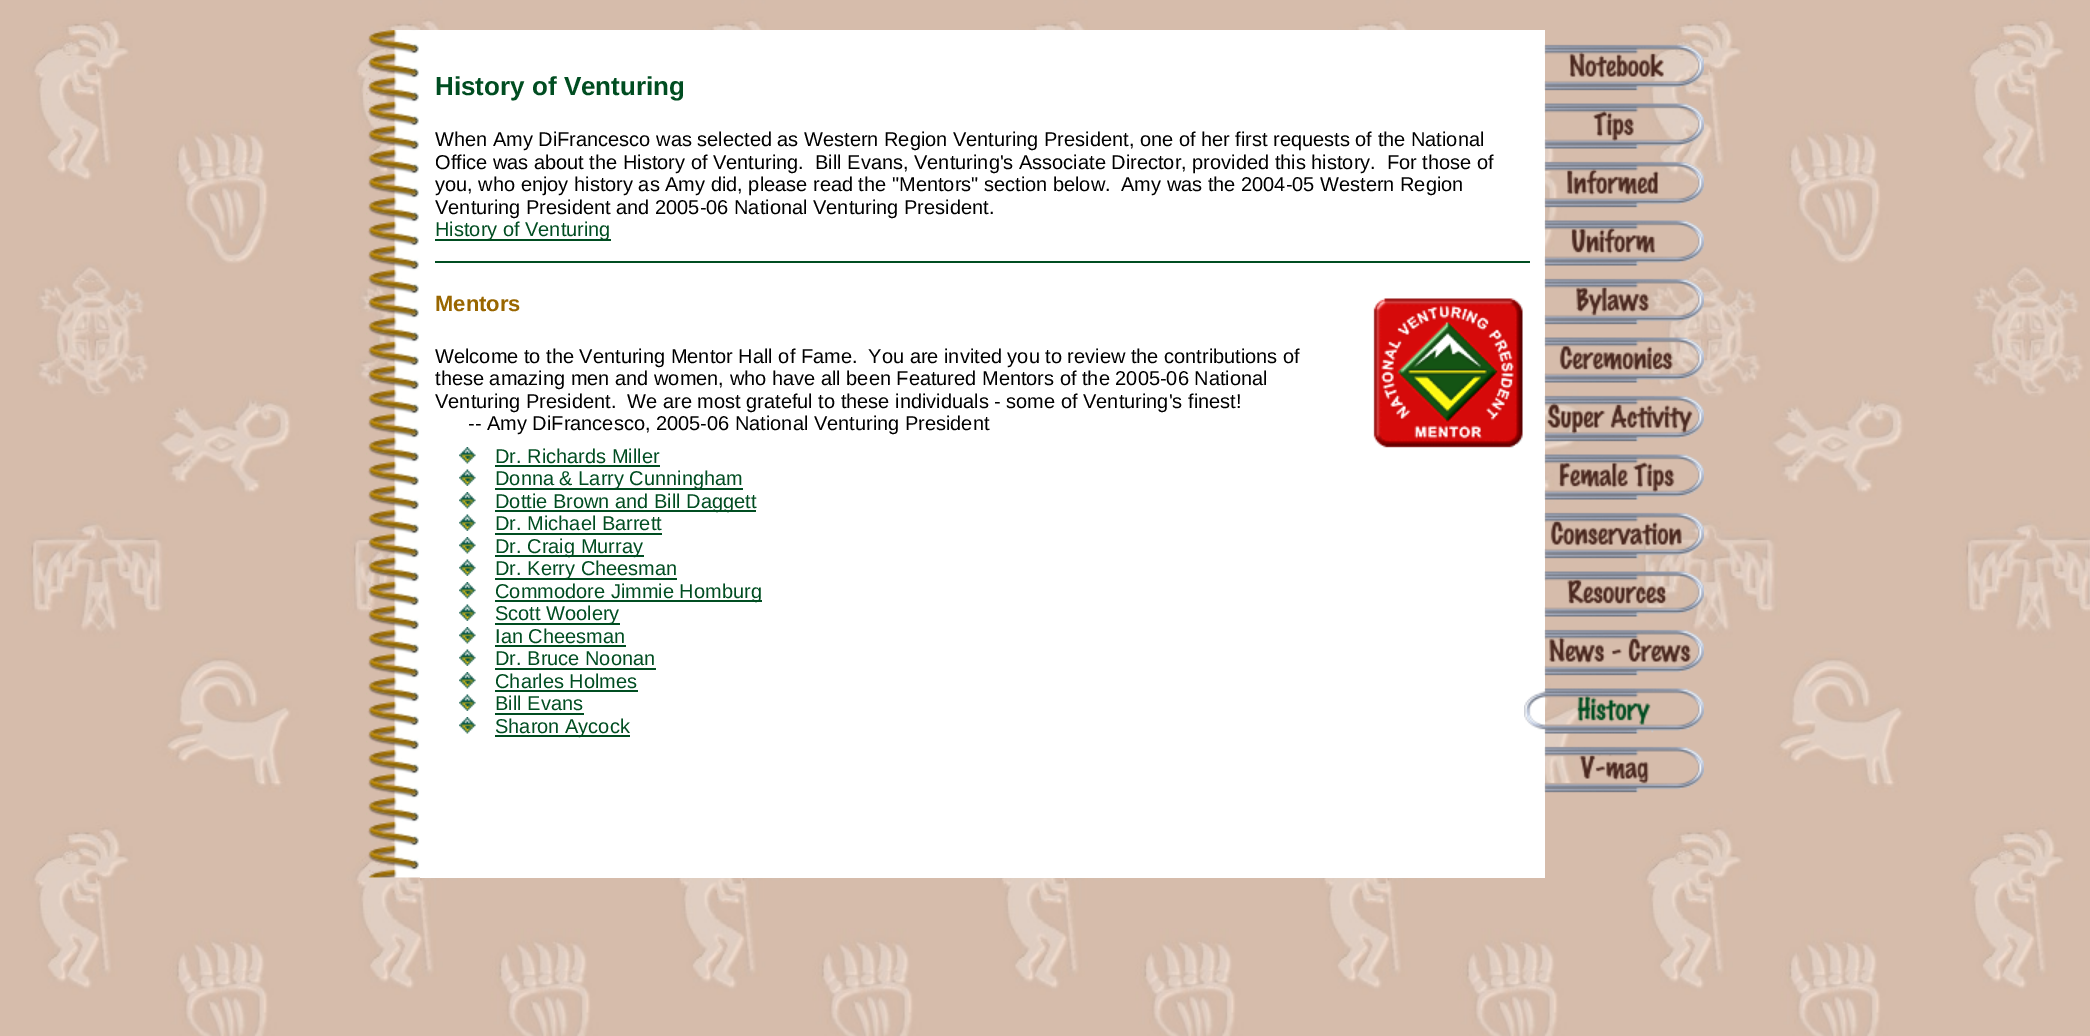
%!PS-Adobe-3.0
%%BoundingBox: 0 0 2090 1036
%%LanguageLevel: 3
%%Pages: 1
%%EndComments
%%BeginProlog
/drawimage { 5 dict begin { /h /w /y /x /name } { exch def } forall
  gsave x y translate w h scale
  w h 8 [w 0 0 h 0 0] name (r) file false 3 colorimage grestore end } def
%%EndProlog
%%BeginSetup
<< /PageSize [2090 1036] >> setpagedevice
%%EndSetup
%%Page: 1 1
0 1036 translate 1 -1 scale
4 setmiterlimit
1 setgray
0 0 2090 1036 rectfill
(images/1.raw) 0 0 2090 1036 drawimage
(images/2.raw) 366 30 54 848 drawimage
420 30 1125 848 rectfill
0 0.302 0.129 setrgbcolor
435 239 176 2 rectfill
435 261 1095 2 rectfill
(images/3.raw) 1373 298 150 150 drawimage
(images/4.raw) 459 447 17 17 drawimage
495 465 165 2 rectfill
(images/5.raw) 459 469 17 17 drawimage
495 488 248 2 rectfill
(images/4.raw) 459 492 17 17 drawimage
495 510 261 2 rectfill
(images/5.raw) 459 514 17 17 drawimage
495 533 167 2 rectfill
(images/4.raw) 459 537 17 17 drawimage
495 555 149 2 rectfill
(images/5.raw) 459 559 17 17 drawimage
495 578 182 2 rectfill
(images/4.raw) 459 582 17 17 drawimage
495 600 267 2 rectfill
(images/5.raw) 459 604 17 17 drawimage
495 623 125 2 rectfill
(images/4.raw) 459 627 17 17 drawimage
495 645 131 2 rectfill
(images/5.raw) 459 649 17 17 drawimage
495 668 161 2 rectfill
(images/4.raw) 459 672 17 17 drawimage
495 690 143 2 rectfill
(images/5.raw) 459 694 17 17 drawimage
495 713 89 2 rectfill
(images/4.raw) 459 717 17 17 drawimage
495 735 135 2 rectfill
(images/6.raw) 1544 44 160 47 drawimage
(images/7.raw) 1544 103 160 46 drawimage
(images/8.raw) 1544 161 160 47 drawimage
(images/9.raw) 1544 220 160 46 drawimage
(images/10.raw) 1544 278 160 47 drawimage
(images/11.raw) 1544 337 160 46 drawimage
(images/12.raw) 1544 395 160 47 drawimage
(images/13.raw) 1544 454 160 46 drawimage
(images/14.raw) 1544 512 160 47 drawimage
(images/15.raw) 1544 571 160 46 drawimage
(images/16.raw) 1544 629 160 47 drawimage
(images/17.raw) 1524 688 180 46 drawimage
(images/18.raw) 1544 746 160 47 drawimage
/LiberationSans-Bold [26 0 0 -26 0 0] selectfont
435 95 moveto (History of Venturing) show
/LiberationSans-Regular [20 0 0 -20 0 0] selectfont
0 setgray
435 146 moveto (When Amy DiFrancesco was selected as Western Region Venturing President, one of her first requests of the National) show
435 169 moveto (Office was about the History of Venturing.  Bill Evans, Venturing's Associate Director, provided this history.  For those of) show
435 191 moveto (you, who enjoy history as Amy did, please read the "Mentors" section below.) show
1121 191 moveto (Amy was the 2004-05 Western Region) show
435 214 moveto (Venturing President and 2005-06 National Venturing President.) show
0 0.302 0.129 setrgbcolor
435 236 moveto (History of Venturing) show
/LiberationSans-Bold [22 0 0 -22 0 0] selectfont
0.6 0.4 0 setrgbcolor
435 311 moveto (Mentors) show
/LiberationSans-Regular [20 0 0 -20 0 0] selectfont
0 setgray
435 363 moveto (Welcome to the Venturing Mentor Hall of Fame.  You are invited you to review the contributions of) show
435 385 moveto (these amazing men and women, who have all been Featured Mentors of the 2005-06 National) show
435 408 moveto (Venturing President.  We are most grateful to these individuals - some of Venturing's finest!) show
468 430 moveto (-- Amy DiFrancesco, 2005-06 National Venturing President) show
0 0.302 0.129 setrgbcolor
495 463 moveto (Dr. Richards Miller) show
495 485 moveto (Donna & Larry Cunningham) show
495 508 moveto (Dottie Brown and Bill Daggett) show
495 530 moveto (Dr. Michael Barrett) show
495 553 moveto (Dr. Craig Murray) show
495 575 moveto (Dr. Kerry Cheesman) show
495 598 moveto (Commodore Jimmie Homburg) show
495 620 moveto (Scott Woolery) show
495 643 moveto (Ian Cheesman) show
495 665 moveto (Dr. Bruce Noonan) show
495 688 moveto (Charles Holmes) show
495 710 moveto (Bill Evans) show
495 733 moveto (Sharon Aycock) show
showpage
%%EOF
